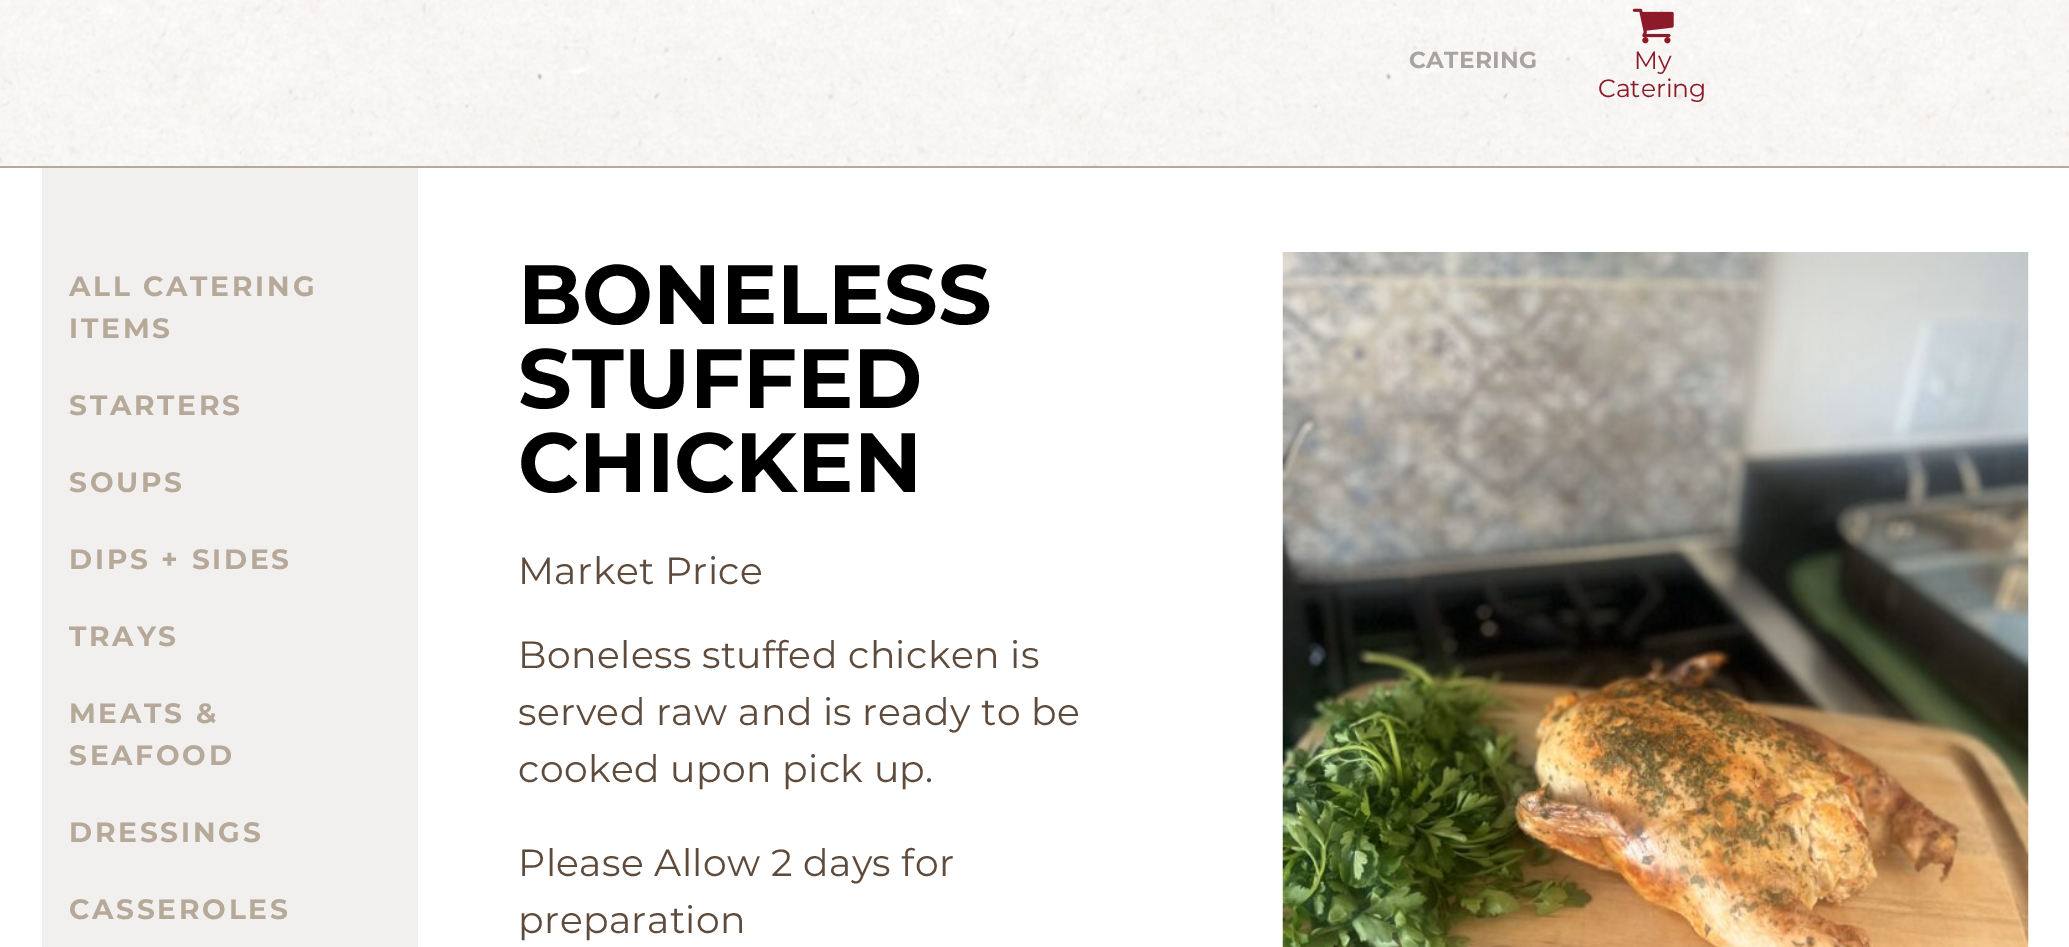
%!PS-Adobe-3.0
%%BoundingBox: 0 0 2069 947
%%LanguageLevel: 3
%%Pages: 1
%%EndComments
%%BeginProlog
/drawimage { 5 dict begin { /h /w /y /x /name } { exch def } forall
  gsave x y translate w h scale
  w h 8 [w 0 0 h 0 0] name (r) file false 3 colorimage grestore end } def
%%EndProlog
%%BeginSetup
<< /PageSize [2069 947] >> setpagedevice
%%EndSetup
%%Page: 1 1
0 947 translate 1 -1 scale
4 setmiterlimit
1 setgray
0 0 2069 947 rectfill
(images/1.raw) 0 0 2069 166 drawimage
(images/2.raw) 0 0 2069 166 drawimage
0.714 0.663 0.6 setrgbcolor
0 166 2069 2 rectfill
(images/3.raw) 1632 8 42 36 drawimage
0.945 0.941 0.933 setrgbcolor
42 168 376 779 rectfill
(images/4.raw) 1282 252 747 695 drawimage
/Montserrat-Bold [23.25 0 0 -23.25 0 0] selectfont
0.655 0.643 0.635 setrgbcolor
1409 68 moveto 0.25 0 (CATERING) ashow
/Montserrat-Regular [25 0 0 -25 0 0] selectfont
0.549 0.102 0.161 setrgbcolor
1634 69 moveto (My) show
1598 97 moveto (Catering) show
/Montserrat-Bold [28 0 0 -28 0 0] selectfont
0.714 0.663 0.6 setrgbcolor
69 296 moveto 2.75 0 (ALL CATERING) ashow
69 338 moveto 2.75 0 (ITEMS) ashow
69 415 moveto 2.75 0 (STARTERS) ashow
69 492 moveto 2.75 0 (SOUPS) ashow
69 569 moveto 2.75 0 (DIPS + SIDES) ashow
69 646 moveto 2.75 0 (TRAYS) ashow
69 723 moveto 2.75 0 (MEATS &) ashow
69 765 moveto 2.75 0 (SEAFOOD) ashow
69 842 moveto 2.75 0 (DRESSINGS) ashow
69 919 moveto 2.75 0 (CASSEROLES) ashow
/Montserrat-Bold [84 0 0 -84 0 0] selectfont
0 setgray
518 324 moveto (BONELESS) show
518 408 moveto (STUFFED) show
518 492 moveto (CHICKEN) show
/Montserrat-Regular [37.75 0 0 -37.75 0 0] selectfont
0.373 0.294 0.235 setrgbcolor
518 584 moveto 0.4 0 (Market Price) ashow
518 668 moveto 0.4 0 (Boneless stuffed chicken is) ashow
518 725 moveto 0.4 0 (served raw and is ready to be) ashow
518 782 moveto 0.4 0 (cooked upon pick up.) ashow
518 876 moveto 0.4 0 (Please Allow 2 days for) ashow
518 933 moveto 0.4 0 (preparation) ashow
showpage
%%EOF
